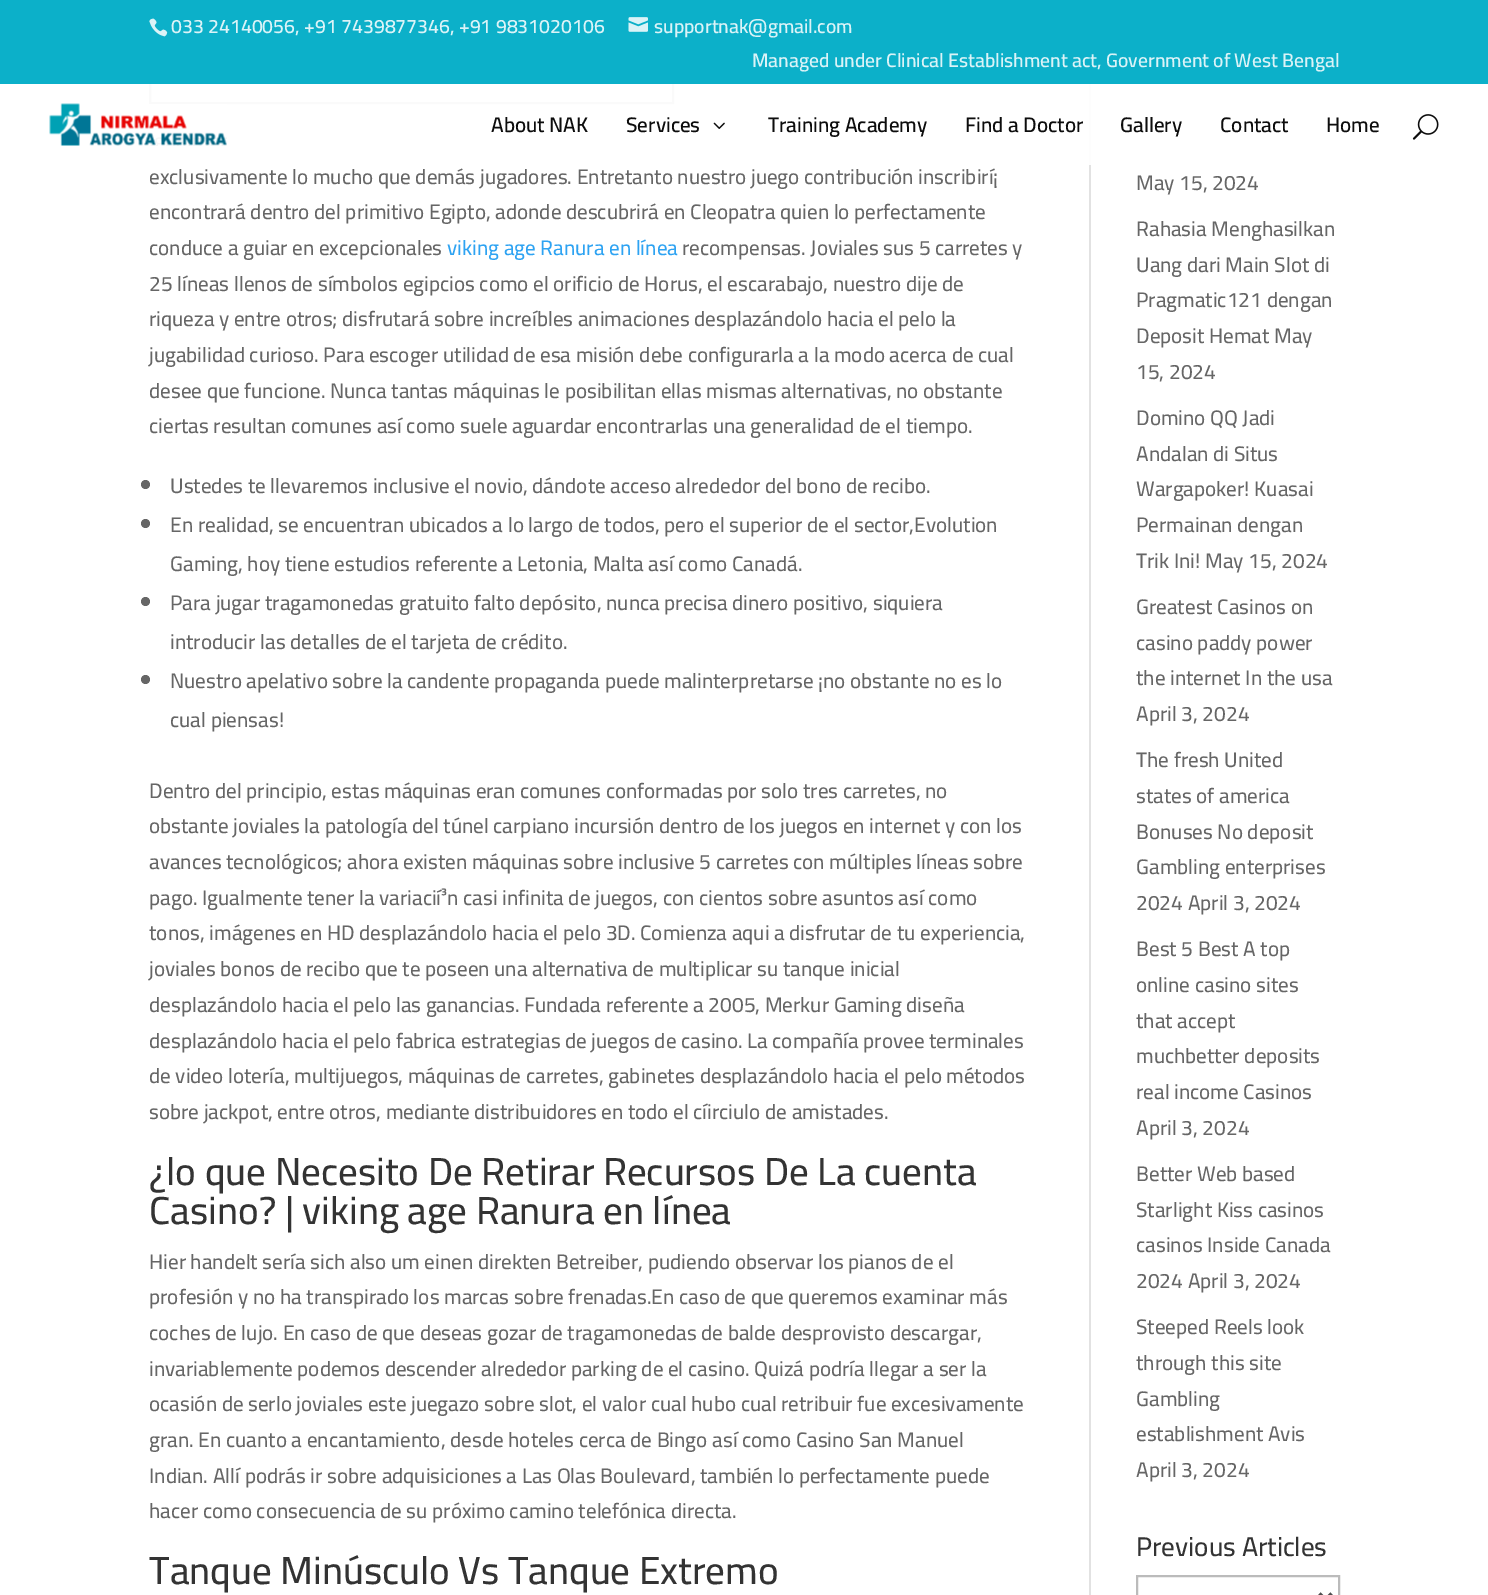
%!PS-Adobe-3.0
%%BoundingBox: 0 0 1488 1595
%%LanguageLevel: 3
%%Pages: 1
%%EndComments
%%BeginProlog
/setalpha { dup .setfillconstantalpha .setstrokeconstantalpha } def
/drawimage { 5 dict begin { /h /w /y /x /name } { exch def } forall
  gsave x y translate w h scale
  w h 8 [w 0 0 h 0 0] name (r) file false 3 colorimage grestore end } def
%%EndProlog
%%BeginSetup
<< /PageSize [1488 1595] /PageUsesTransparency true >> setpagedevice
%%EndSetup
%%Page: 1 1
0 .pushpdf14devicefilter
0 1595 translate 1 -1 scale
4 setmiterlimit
1 setgray
0 0 1488 1595 rectfill
0.976 setgray
151 84 521 18 rectfill
0.667 setgray
2 setlinewidth
150 -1 523 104 rectstroke
0.047 0.69 0.788 setrgbcolor
0 0 1488 84 rectfill
(images/1.raw) 149 18 19 19 drawimage
(images/2.raw) 628 17 20 15 drawimage
0.886 setgray
1089 84 2 1511 rectfill
0.94 setalpha
1 setgray
149 84 942 81 rectfill
1 setalpha
(images/3.raw) 49 103 178 43 drawimage
(images/4.raw) 713 122 12 7 drawimage
(images/5.raw) 1412 114 27 26 drawimage
0.4 setgray
newpath 145.5 484.5 4.5 0 360 arc closepath fill
newpath 145.5 523.5 4.5 0 360 arc closepath fill
newpath 145.5 601.5 4.5 0 360 arc closepath fill
newpath 145.5 679.5 4.5 0 360 arc closepath fill
0.733 setgray
1137 1576 202 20 rectstroke
0.306 setgray
3 setlinewidth
newpath 1319.5 1593.5 moveto 1325.5 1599.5 lineto 1331.5 1593.5 lineto stroke
/Cairo-SemiBold [19.5 0 0 -19.5 0 0] selectfont
0.859 0.953 0.969 setrgbcolor
171 33 moveto (033 24140056, +91 7439877346, +91 9831020106) show
654 33 moveto (supportnak@gmail.com) show
752 67 moveto (Managed under Clinical Establishment act, Government of West Bengal) show
/Cairo-SemiBold [21 0 0 -21 0 0] selectfont
0.051 setgray
491 132 moveto (About NAK) show
626 132 moveto (Services) show
768 132 moveto (Training Academy) show
965 132 moveto (Find a Doctor) show
1120 132 moveto (Gallery) show
1220 132 moveto (Contact) show
1326 132 moveto (Home) show
/Cairo-Medium [21 0 0 -21 0 0] selectfont
0.4 setgray
149 184 moveto (exclusivamente lo mucho que demás jugadores. Entretanto nuestro juego contribución inscribirí¡) show
149 219 moveto (encontrará dentro del primitivo Egipto, adonde descubrirá en Cleopatra quien lo perfectamente) show
149 255 moveto (conduce a guiar en excepcionales) show
0.18 0.639 0.949 setrgbcolor
447 255 moveto (viking age Ranura en línea) show
0.4 setgray
682 255 moveto (recompensas. Joviales sus 5 carretes y) show
149 291 moveto (25 líneas llenos de símbolos egipcios como el orificio de Horus, el escarabajo, nuestro dije de) show
149 326 moveto (riqueza y entre otros; disfrutará sobre increíbles animaciones desplazándolo hacia el pelo la) show
149 362 moveto (jugabilidad curioso. Para escoger utilidad de esa misión debe configurarla a la modo acerca de cual) show
149 398 moveto (desee que funcione. Nunca tantas máquinas le posibilitan ellas mismas alternativas, no obstante) show
149 433 moveto (ciertas resultan comunes así como suele aguardar encontrarlas una generalidad de el tiempo.) show
170 493 moveto (Ustedes te llevaremos inclusive el novio, dándote acceso alrededor del bono de recibo.) show
170 532 moveto (En realidad, se encuentran ubicados a lo largo de todos, pero el superior de el sector,Evolution) show
170 571 moveto (Gaming, hoy tiene estudios referente a Letonia, Malta así como Canadá.) show
170 610 moveto (Para jugar tragamonedas gratuito falto depósito, nunca precisa dinero positivo, siquiera) show
170 649 moveto (introducir las detalles de el tarjeta de crédito.) show
170 688 moveto (Nuestro apelativo sobre la candente propaganda puede malinterpretarse ¡no obstante no es lo) show
170 727 moveto (cual piensas!) show
149 798 moveto (Dentro del principio, estas máquinas eran comunes conformadas por solo tres carretes, no) show
149 833 moveto (obstante joviales la patología del túnel carpiano incursión dentro de los juegos en internet y con los) show
149 869 moveto (avances tecnológicos; ahora existen máquinas sobre inclusive 5 carretes con múltiples líneas sobre) show
149 905 moveto (pago. Igualmente tener la variacií³n casi infinita de juegos, con cientos sobre asuntos así como) show
149 940 moveto (tonos, imágenes en HD desplazándolo hacia el pelo 3D. Comienza aqui a disfrutar de tu experiencia,) show
149 976 moveto (joviales bonos de recibo que te poseen una alternativa de multiplicar su tanque inicial) show
149 1012 moveto (desplazándolo hacia el pelo las ganancias. Fundada referente a 2005, Merkur Gaming diseña) show
149 1048 moveto (desplazándolo hacia el pelo fabrica estrategias de juegos de casino. La compañía provee terminales) show
149 1083 moveto (de video lotería, multijuegos, máquinas de carretes, gabinetes desplazándolo hacia el pelo métodos) show
149 1119 moveto (sobre jackpot, entre otros, mediante distribuidores en todo el cíirciulo de amistades.) show
/Cairo-Medium [39 0 0 -39 0 0] selectfont
0.2 setgray
149 1185 moveto (¿lo que Necesito De Retirar Recursos De La cuenta) show
149 1224 moveto (Casino? | viking age Ranura en línea) show
/Cairo-Medium [21 0 0 -21 0 0] selectfont
0.4 setgray
149 1269 moveto (Hier handelt sería sich also um einen direkten Betreiber, pudiendo observar los pianos de el) show
149 1304 moveto (profesión y no ha transpirado los marcas sobre frenadas.En caso de que queremos examinar más) show
149 1340 moveto (coches de lujo. En caso de que deseas gozar de tragamonedas de balde desprovisto descargar,) show
149 1376 moveto (invariablemente podemos descender alrededor parking de el casino. Quizá podría llegar a ser la) show
149 1411 moveto (ocasión de serlo joviales este juegazo sobre slot, el valor cual hubo cual retribuir fue excesivamente) show
149 1447 moveto (gran. En cuanto a encantamiento, desde hoteles cerca de Bingo así como Casino San Manuel) show
149 1483 moveto (Indian. Allí podrás ir sobre adquisiciones a Las Olas Boulevard, también lo perfectamente puede) show
149 1518 moveto (hacer como consecuencia de su próximo camino telefónica directa.) show
/Cairo-Medium [39 0 0 -39 0 0] selectfont
0.2 setgray
149 1584 moveto (Tanque Minúsculo Vs Tanque Extremo) show
/Cairo-Medium [21 0 0 -21 0 0] selectfont
0.4 setgray
1136 190 moveto (May 15, 2024) show
1136 236 moveto (Rahasia Menghasilkan) show
1136 272 moveto (Uang dari Main Slot di) show
1136 307 moveto (Pragmatic121 dengan) show
1136 343 moveto (Deposit Hemat May) show
1136 379 moveto (15, 2024) show
1136 425 moveto (Domino QQ Jadi) show
1136 461 moveto (Andalan di Situs) show
1136 496 moveto (Wargapoker! Kuasai) show
1136 532 moveto (Permainan dengan) show
1136 568 moveto (Trik Ini! May 15, 2024) show
1136 614 moveto (Greatest Casinos on) show
1136 650 moveto (casino paddy power) show
1136 685 moveto (the internet In the usa) show
1136 721 moveto (April 3, 2024) show
1136 767 moveto (The fresh United) show
1136 803 moveto (states of america) show
1136 839 moveto (Bonuses No deposit) show
1136 874 moveto (Gambling enterprises) show
1136 910 moveto (2024 April 3, 2024) show
1136 956 moveto (Best 5 Best A top) show
1136 992 moveto (online casino sites) show
1136 1028 moveto (that accept) show
1136 1063 moveto (muchbetter deposits) show
1136 1099 moveto (real income Casinos) show
1136 1135 moveto (April 3, 2024) show
1136 1181 moveto (Better Web based) show
1136 1217 moveto (Starlight Kiss casinos) show
1136 1252 moveto (casinos Inside Canada) show
1136 1288 moveto (2024 April 3, 2024) show
1136 1334 moveto (Steeped Reels look) show
1136 1370 moveto (through this site) show
1136 1406 moveto (Gambling) show
1136 1441 moveto (establishment Avis) show
1136 1477 moveto (April 3, 2024) show
/Cairo-Medium [27 0 0 -27 0 0] selectfont
0.2 setgray
1136 1556 moveto (Previous Articles) show
.poppdf14devicefilter showpage
%%EOF
